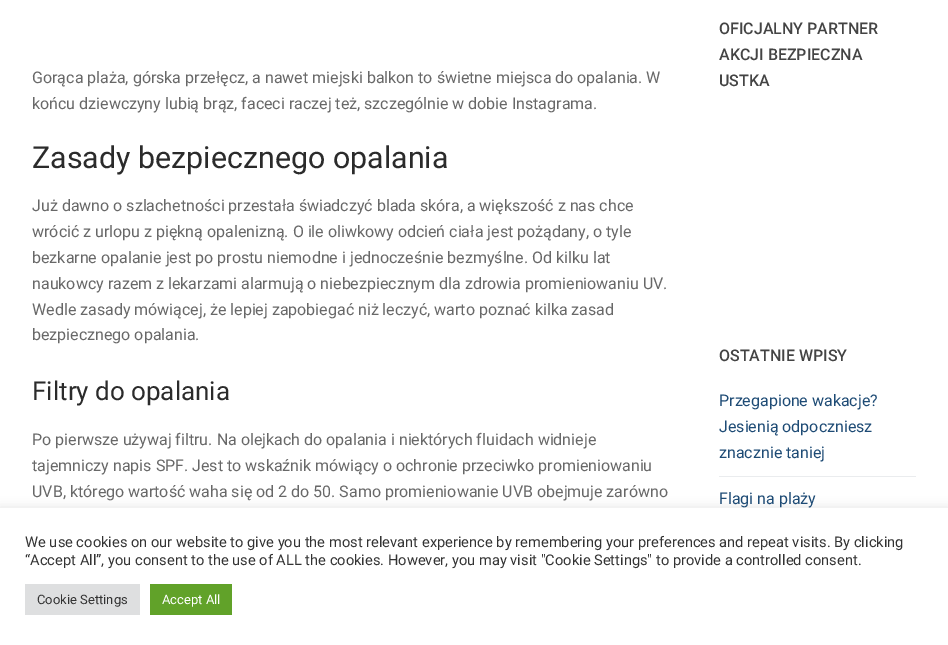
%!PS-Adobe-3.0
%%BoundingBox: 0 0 948 645
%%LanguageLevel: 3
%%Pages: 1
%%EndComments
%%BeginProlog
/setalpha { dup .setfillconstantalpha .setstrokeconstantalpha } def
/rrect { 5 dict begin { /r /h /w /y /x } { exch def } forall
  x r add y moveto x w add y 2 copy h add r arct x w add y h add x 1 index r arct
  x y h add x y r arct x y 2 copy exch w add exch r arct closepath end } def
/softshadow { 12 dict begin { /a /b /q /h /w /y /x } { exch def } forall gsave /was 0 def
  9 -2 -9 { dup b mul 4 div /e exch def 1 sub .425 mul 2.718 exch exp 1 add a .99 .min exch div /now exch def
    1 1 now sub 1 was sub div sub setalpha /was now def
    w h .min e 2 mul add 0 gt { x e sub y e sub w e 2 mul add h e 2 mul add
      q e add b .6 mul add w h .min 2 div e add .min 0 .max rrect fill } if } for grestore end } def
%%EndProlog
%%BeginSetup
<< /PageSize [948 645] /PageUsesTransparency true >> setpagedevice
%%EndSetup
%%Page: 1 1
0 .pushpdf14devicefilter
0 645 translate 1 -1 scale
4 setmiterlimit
1 setgray
0 0 948 645 rectfill
0.918 0.925 0.933 setrgbcolor
719 476 197 1 rectfill
0.675 0.671 0.671 setrgbcolor
0 507 948 137 0 5 0.3 softshadow
1 setgray
0 508 948 137 rectfill
0.871 0.875 0.878 setrgbcolor
25 584 115 31 rectfill
0.38 0.635 0.161 setrgbcolor
150 584 82 31 rectfill
/Roboto-Regular [16 0 0 -16 0 0] selectfont
0.408 setgray
32 83 moveto (Gorąca plaża, górska przełęcz, a nawet miejski balkon to świetne miejsca do opalania. W) show
32 109 moveto (końcu dziewczyny lubią brąz, faceci raczej też, szczególnie w dobie Instagrama.) show
/Roboto-Regular [30.4 0 0 -30.4 0 0] selectfont
0.169 setgray
32 168 moveto (Zasady bezpiecznego opalania) show
/Roboto-Regular [16 0 0 -16 0 0] selectfont
0.408 setgray
32 211 moveto (Już dawno o szlachetności przestała świadczyć blada skóra, a większość z nas chce) show
32 237 moveto (wrócić z urlopu z piękną opalenizną. O ile oliwkowy odcień ciała jest pożądany, o tyle) show
32 263 moveto (bezkarne opalanie jest po prostu niemodne i jednocześnie bezmyślne. Od kilku lat) show
32 289 moveto (naukowcy razem z lekarzami alarmują o niebezpiecznym dla zdrowia promieniowaniu UV.) show
32 315 moveto (Wedle zasady mówiącej, że lepiej zapobiegać niż leczyć, warto poznać kilka zasad) show
32 340 moveto (bezpiecznego opalania.) show
/Roboto-Regular [26 0 0 -26 0 0] selectfont
0.169 setgray
32 400 moveto (Filtry do opalania) show
/Roboto-Regular [16 0 0 -16 0 0] selectfont
0.408 setgray
32 445 moveto (Po pierwsze używaj filtru. Na olejkach do opalania i niektórych fluidach widnieje) show
32 471 moveto (tajemniczy napis SPF. Jest to wskaźnik mówiący o ochronie przeciwko promieniowaniu) show
32 497 moveto (UVB, którego wartość waha się od 2 do 50. Samo promieniowanie UVB obejmuje zarówno) show
/Roboto-Medium [16 0 0 -16 0 0] selectfont
0.267 setgray
719 34 moveto (OFICJALNY PARTNER) show
719 60 moveto (AKCJI BEZPIECZNA) show
719 86 moveto (USTKA) show
719 361 moveto (OSTATNIE WPISY) show
/Roboto-Regular [16 0 0 -16 0 0] selectfont
0.118 0.294 0.459 setrgbcolor
719 406 moveto (Przegapione wakacje?) show
719 432 moveto (Jesienią odpoczniesz) show
719 458 moveto (znacznie taniej) show
719 504 moveto (Flagi na plaży) show
/Roboto-Regular [14.67 0 0 -14.67 0 0] selectfont
0.2 setgray
25 547 moveto (We use cookies on our website to give you the most relevant experience by remembering your preferences and repeat visits. By clicking) show
25 565 moveto (“Accept All”, you consent to the use of ALL the cookies. However, you may visit "Cookie Settings" to provide a controlled consent.) show
/Roboto-Regular [13 0 0 -13 0 0] selectfont
37 604 moveto (Cookie Settings) show
1 setgray
162 604 moveto (Accept All) show
.poppdf14devicefilter showpage
%%EOF
